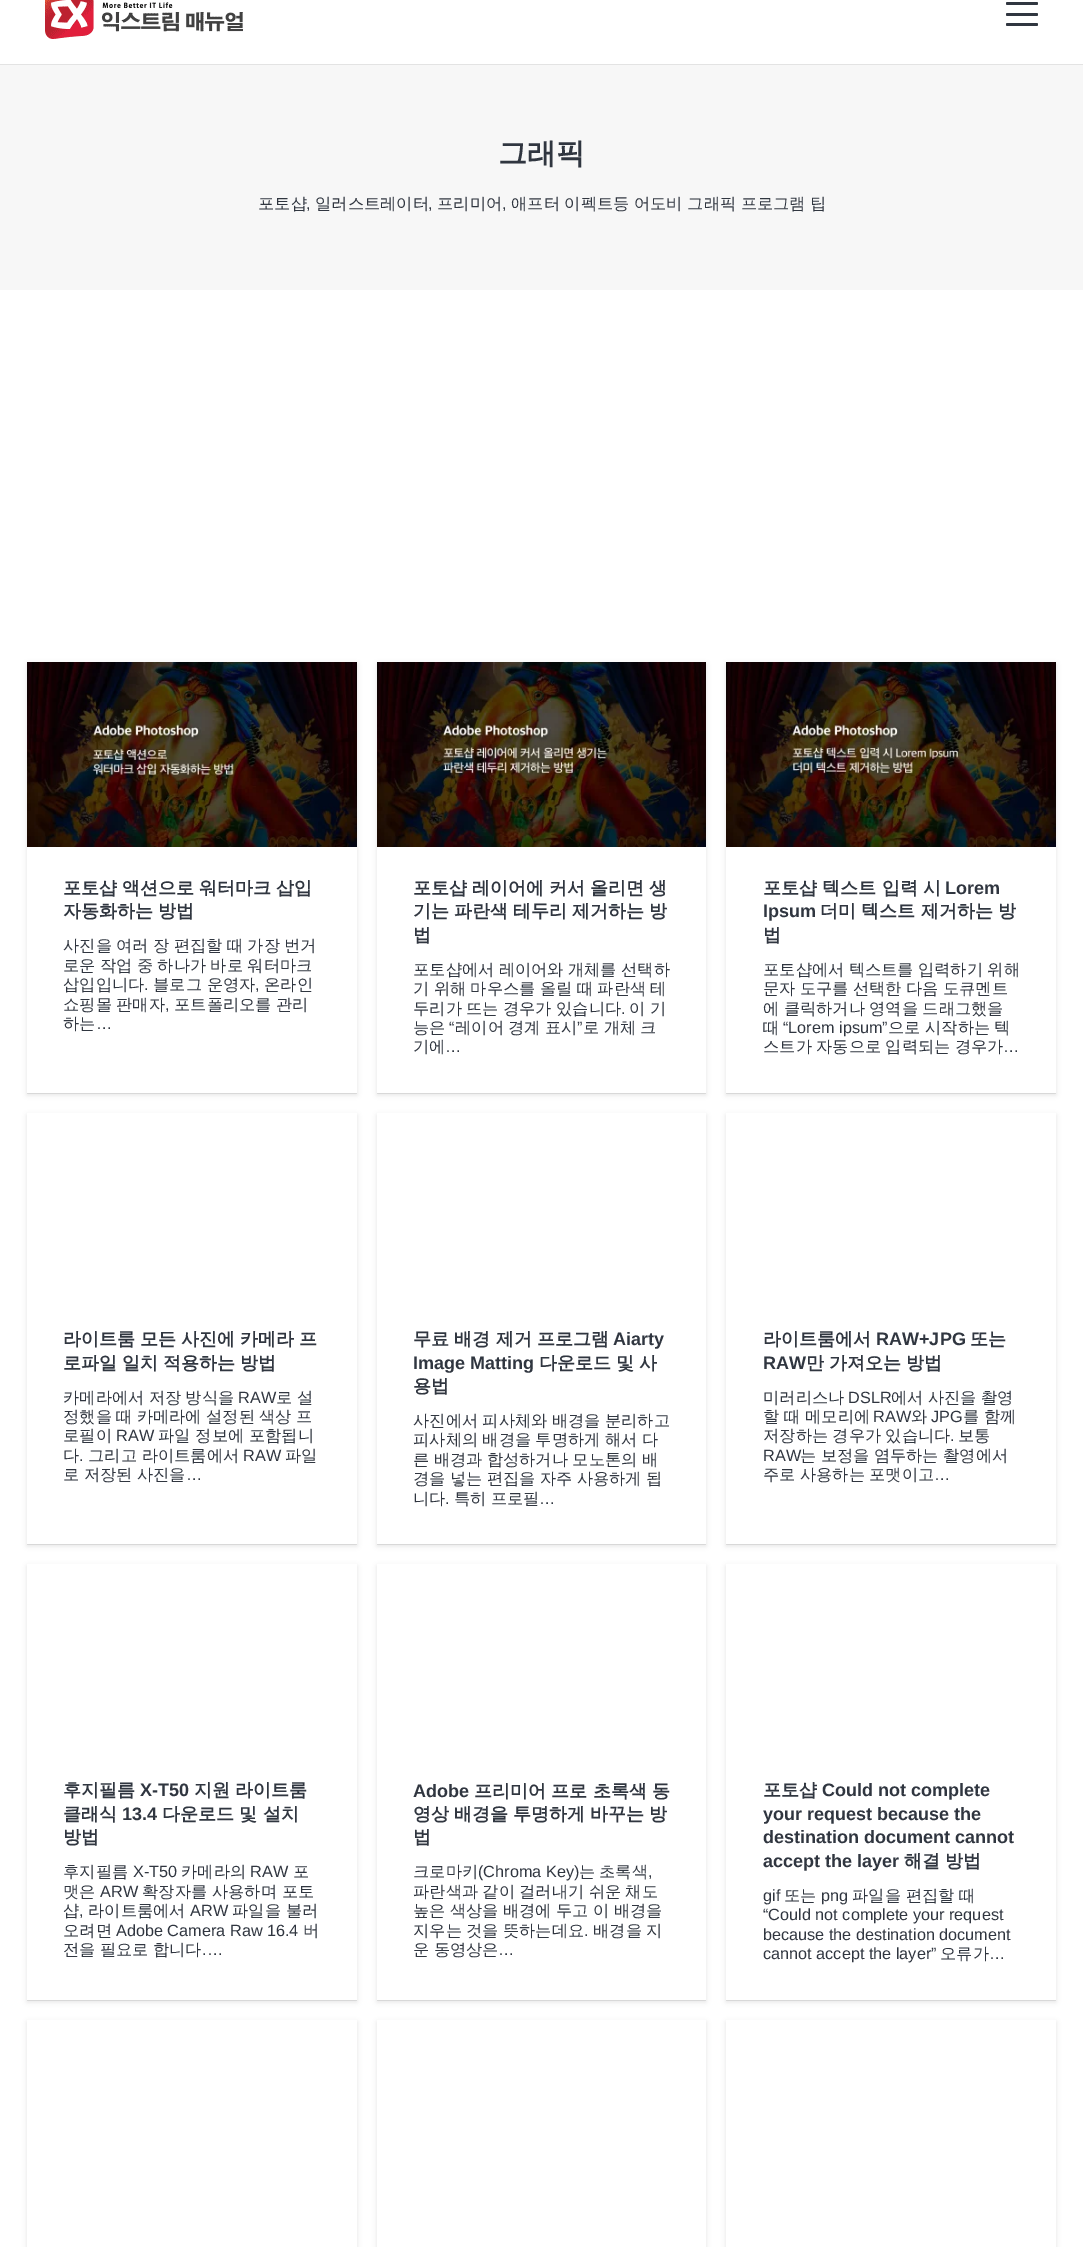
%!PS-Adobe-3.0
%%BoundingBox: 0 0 1083 2247
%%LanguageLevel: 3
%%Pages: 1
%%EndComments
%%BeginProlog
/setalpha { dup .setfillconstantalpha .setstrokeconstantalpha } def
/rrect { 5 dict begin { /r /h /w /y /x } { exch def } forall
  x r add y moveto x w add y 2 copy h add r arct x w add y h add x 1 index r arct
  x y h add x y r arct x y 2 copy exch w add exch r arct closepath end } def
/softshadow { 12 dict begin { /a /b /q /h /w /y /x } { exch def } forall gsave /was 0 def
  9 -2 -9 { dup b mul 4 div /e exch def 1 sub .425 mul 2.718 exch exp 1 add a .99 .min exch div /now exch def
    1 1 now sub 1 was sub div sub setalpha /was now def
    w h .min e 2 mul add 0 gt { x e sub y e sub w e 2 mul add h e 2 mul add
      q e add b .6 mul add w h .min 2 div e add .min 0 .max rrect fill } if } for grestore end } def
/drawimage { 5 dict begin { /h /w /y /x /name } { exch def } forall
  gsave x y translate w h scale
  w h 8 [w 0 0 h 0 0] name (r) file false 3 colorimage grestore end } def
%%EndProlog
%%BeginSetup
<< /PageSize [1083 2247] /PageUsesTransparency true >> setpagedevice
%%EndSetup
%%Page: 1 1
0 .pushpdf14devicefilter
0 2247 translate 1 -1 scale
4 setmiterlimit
1 setgray
0 0 1083 2247 rectfill
0.89 setgray
0 64 1083 1 rectfill
(images/1.raw) 45 0 198 39 drawimage
0.188 0.212 0.251 setrgbcolor
1006 13 32 3 1.5 rrect fill
1006 2 32 3 1.5 rrect fill
1006 23 32 3 1.5 rrect fill
0.969 setgray
0 65 1083 225 rectfill
gsave
newpath 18 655 moveto 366 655 lineto 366 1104 lineto 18 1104 lineto closepath 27 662 moveto 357 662 lineto 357 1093 lineto 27 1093 lineto closepath eoclip newpath
0 setgray
27 664 330 431 0 2.5 0.1 softshadow
grestore
gsave
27 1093 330 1 rectclip
0 setgray
27 663 330 431 0 0.5 0.1 softshadow
grestore
(images/2.raw) 27 662 330 185 drawimage
gsave
newpath 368 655 moveto 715 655 lineto 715 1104 lineto 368 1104 lineto closepath 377 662 moveto 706 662 lineto 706 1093 lineto 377 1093 lineto closepath eoclip newpath
0 setgray
377 664 329 431 0 2.5 0.1 softshadow
grestore
gsave
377 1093 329 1 rectclip
0 setgray
377 663 329 431 0 0.5 0.1 softshadow
grestore
(images/3.raw) 377 662 329 185 drawimage
gsave
newpath 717 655 moveto 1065 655 lineto 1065 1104 lineto 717 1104 lineto closepath 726 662 moveto 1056 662 lineto 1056 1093 lineto 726 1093 lineto closepath eoclip newpath
0 setgray
726 664 330 431 0 2.5 0.1 softshadow
grestore
gsave
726 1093 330 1 rectclip
0 setgray
726 663 330 431 0 0.5 0.1 softshadow
grestore
(images/4.raw) 726 662 330 185 drawimage
gsave
newpath 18 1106 moveto 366 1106 lineto 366 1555 lineto 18 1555 lineto closepath 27 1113 moveto 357 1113 lineto 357 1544 lineto 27 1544 lineto closepath eoclip newpath
0 setgray
27 1115 330 431 0 2.5 0.1 softshadow
grestore
gsave
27 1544 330 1 rectclip
0 setgray
27 1114 330 431 0 0.5 0.1 softshadow
grestore
gsave
newpath 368 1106 moveto 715 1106 lineto 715 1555 lineto 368 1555 lineto closepath 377 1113 moveto 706 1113 lineto 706 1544 lineto 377 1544 lineto closepath eoclip newpath
0 setgray
377 1115 329 431 0 2.5 0.1 softshadow
grestore
gsave
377 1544 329 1 rectclip
0 setgray
377 1114 329 431 0 0.5 0.1 softshadow
grestore
gsave
newpath 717 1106 moveto 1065 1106 lineto 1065 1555 lineto 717 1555 lineto closepath 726 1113 moveto 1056 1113 lineto 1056 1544 lineto 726 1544 lineto closepath eoclip newpath
0 setgray
726 1115 330 431 0 2.5 0.1 softshadow
grestore
gsave
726 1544 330 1 rectclip
0 setgray
726 1114 330 431 0 0.5 0.1 softshadow
grestore
gsave
newpath 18 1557 moveto 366 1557 lineto 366 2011 lineto 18 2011 lineto closepath 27 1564 moveto 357 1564 lineto 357 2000 lineto 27 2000 lineto closepath eoclip newpath
0 setgray
27 1566 330 436 0 2.5 0.1 softshadow
grestore
gsave
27 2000 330 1 rectclip
0 setgray
27 1565 330 436 0 0.5 0.1 softshadow
grestore
gsave
newpath 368 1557 moveto 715 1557 lineto 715 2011 lineto 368 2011 lineto closepath 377 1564 moveto 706 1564 lineto 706 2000 lineto 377 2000 lineto closepath eoclip newpath
0 setgray
377 1566 329 436 0 2.5 0.1 softshadow
grestore
gsave
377 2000 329 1 rectclip
0 setgray
377 1565 329 436 0 0.5 0.1 softshadow
grestore
gsave
newpath 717 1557 moveto 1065 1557 lineto 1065 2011 lineto 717 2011 lineto closepath 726 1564 moveto 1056 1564 lineto 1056 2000 lineto 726 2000 lineto closepath eoclip newpath
0 setgray
726 1566 330 436 0 2.5 0.1 softshadow
grestore
gsave
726 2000 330 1 rectclip
0 setgray
726 1565 330 436 0 0.5 0.1 softshadow
grestore
gsave
newpath 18 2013 moveto 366 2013 lineto 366 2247 lineto 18 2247 lineto closepath 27 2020 moveto 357 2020 lineto 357 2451 lineto 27 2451 lineto closepath eoclip newpath
0 setgray
27 2022 330 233 0 2.5 0.1 softshadow
grestore
gsave
newpath 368 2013 moveto 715 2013 lineto 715 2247 lineto 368 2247 lineto closepath 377 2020 moveto 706 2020 lineto 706 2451 lineto 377 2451 lineto closepath eoclip newpath
0 setgray
377 2022 329 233 0 2.5 0.1 softshadow
grestore
gsave
newpath 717 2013 moveto 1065 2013 lineto 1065 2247 lineto 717 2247 lineto closepath 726 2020 moveto 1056 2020 lineto 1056 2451 lineto 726 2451 lineto closepath eoclip newpath
0 setgray
726 2022 330 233 0 2.5 0.1 softshadow
grestore
/WenQuanYiZenHei-Bold [29 0 0 -29 0 0] selectfont
0.188 0.212 0.251 setrgbcolor
498 163 moveto (그래픽) show
/WenQuanYiZenHei-Medium [16.25 0 0 -16.25 0 0] selectfont
258 209 moveto (포토샵) show
/LiberationSans-Regular [16.25 0 0 -16.25 0 0] selectfont
306 209 moveto (,) show
/WenQuanYiZenHei-Medium [16.25 0 0 -16.25 0 0] selectfont
315 209 moveto (일러스트레이터) show
/LiberationSans-Regular [16.25 0 0 -16.25 0 0] selectfont
428 209 moveto (,) show
/WenQuanYiZenHei-Medium [16.25 0 0 -16.25 0 0] selectfont
437 209 moveto (프리미어) show
/LiberationSans-Regular [16.25 0 0 -16.25 0 0] selectfont
502 209 moveto (,) show
/WenQuanYiZenHei-Medium [16.25 0 0 -16.25 0 0] selectfont
511 209 moveto -0.25 0 32 (애프터 이펙트등 어도비 그래픽 프로그램 팁) widthshow
/WenQuanYiZenHei-Bold [18 0 0 -18 0 0] selectfont
63 894 moveto -0.5 0 32 (포토샵 액션으로 워터마크 삽입) widthshow
63 917 moveto -0.5 0 32 (자동화하는 방법) widthshow
/WenQuanYiZenHei-Medium [16.25 0 0 -16.25 0 0] selectfont
63 951 moveto -0.5 0 32 (사진을 여러 장 편집할 때 가장 번거) widthshow
63 971 moveto -0.5 0 32 (로운 작업 중 하나가 바로 워터마크) widthshow
63 990 moveto (삽입입니다) show
/LiberationSans-Regular [16.25 0 0 -16.25 0 0] selectfont
144 990 moveto (.) show
/WenQuanYiZenHei-Medium [16.25 0 0 -16.25 0 0] selectfont
153 990 moveto (블로그 운영자) show
/LiberationSans-Regular [16.25 0 0 -16.25 0 0] selectfont
255 990 moveto (,) show
/WenQuanYiZenHei-Medium [16.25 0 0 -16.25 0 0] selectfont
264 990 moveto (온라인) show
63 1010 moveto -0.5 0 32 (쇼핑몰 판매자) widthshow
/LiberationSans-Regular [16.25 0 0 -16.25 0 0] selectfont
165 1010 moveto (,) show
/WenQuanYiZenHei-Medium [16.25 0 0 -16.25 0 0] selectfont
174 1010 moveto -0.5 0 32 (포트폴리오를 관리) widthshow
63 1029 moveto (하는) show
/LiberationSans-Regular [16.25 0 0 -16.25 0 0] selectfont
96 1029 moveto (…) show
/WenQuanYiZenHei-Bold [18 0 0 -18 0 0] selectfont
413 894 moveto -0.5 0 32 (포토샵 레이어에 커서 올리면 생) widthshow
413 917 moveto -0.5 0 32 (기는 파란색 테두리 제거하는 방) widthshow
413 941 moveto (법) show
/WenQuanYiZenHei-Medium [16.25 0 0 -16.25 0 0] selectfont
413 975 moveto -0.5 0 32 (포토샵에서 레이어와 개체를 선택하) widthshow
413 994 moveto -0.5 0 32 (기 위해 마우스를 올릴 때 파란색 테) widthshow
413 1014 moveto -0.5 0 32 (두리가 뜨는 경우가 있습니다) widthshow
/LiberationSans-Regular [16.25 0 0 -16.25 0 0] selectfont
621 1014 moveto (.) show
/WenQuanYiZenHei-Medium [16.25 0 0 -16.25 0 0] selectfont
629 1014 moveto -0.5 0 32 (이 기) widthshow
413 1033 moveto (능은) show
/LiberationSans-Regular [16.25 0 0 -16.25 0 0] selectfont
449 1033 moveto (“) show
/WenQuanYiZenHei-Medium [16.25 0 0 -16.25 0 0] selectfont
455 1033 moveto -0.5 0 32 (레이어 경계 표시) widthshow
/LiberationSans-Regular [16.25 0 0 -16.25 0 0] selectfont
577 1033 moveto (”) show
/WenQuanYiZenHei-Medium [16.25 0 0 -16.25 0 0] selectfont
583 1033 moveto -0.5 0 32 (로 개체 크) widthshow
413 1052 moveto (기에) show
/LiberationSans-Regular [16.25 0 0 -16.25 0 0] selectfont
445 1052 moveto (…) show
/WenQuanYiZenHei-Bold [18 0 0 -18 0 0] selectfont
763 894 moveto (포토샵 텍스트 입력 시) show
/LiberationSans-Bold [18 0 0 -18 0 0] selectfont
945 894 moveto (Lorem) show
763 917 moveto (Ipsum) show
/WenQuanYiZenHei-Bold [18 0 0 -18 0 0] selectfont
820 917 moveto (더미 텍스트 제거하는 방) show
763 941 moveto (법) show
/WenQuanYiZenHei-Medium [16.25 0 0 -16.25 0 0] selectfont
763 975 moveto -0.5 0 32 (포토샵에서 텍스트를 입력하기 위해) widthshow
763 994 moveto -0.5 0 32 (문자 도구를 선택한 다음 도큐멘트) widthshow
763 1014 moveto -0.5 0 32 (에 클릭하거나 영역을 드래그했을) widthshow
763 1033 moveto (때) show
/LiberationSans-Regular [16.25 0 0 -16.25 0 0] selectfont
783 1033 moveto (“Lorem ipsum”) show
/WenQuanYiZenHei-Medium [16.25 0 0 -16.25 0 0] selectfont
888 1033 moveto (으로) show
925 1033 moveto (시작하는) show
994 1033 moveto (텍) show
763 1052 moveto -0.5 0 32 (스트가 자동으로 입력되는 경우가) widthshow
/LiberationSans-Regular [16.25 0 0 -16.25 0 0] selectfont
1003 1052 moveto (…) show
/WenQuanYiZenHei-Bold [18 0 0 -18 0 0] selectfont
63 1345 moveto -0.5 0 32 (라이트룸 모든 사진에 카메라 프) widthshow
63 1369 moveto -0.5 0 32 (로파일 일치 적용하는 방법) widthshow
/WenQuanYiZenHei-Medium [16.25 0 0 -16.25 0 0] selectfont
63 1403 moveto -0.5 0 32 (카메라에서 저장 방식을) widthshow
/LiberationSans-Regular [16.25 0 0 -16.25 0 0] selectfont
238 1403 moveto (RAW) show
/WenQuanYiZenHei-Medium [16.25 0 0 -16.25 0 0] selectfont
276 1403 moveto -0.5 0 32 (로 설) widthshow
63 1422 moveto -0.5 0 32 (정했을 때 카메라에 설정된 색상 프) widthshow
63 1441 moveto (로필이) show
/LiberationSans-Regular [16.25 0 0 -16.25 0 0] selectfont
116 1441 moveto (RAW) show
/WenQuanYiZenHei-Medium [16.25 0 0 -16.25 0 0] selectfont
158 1441 moveto (파일 정보에 포함됩니) show
63 1461 moveto (다) show
/LiberationSans-Regular [16.25 0 0 -16.25 0 0] selectfont
79 1461 moveto (.) show
/WenQuanYiZenHei-Medium [16.25 0 0 -16.25 0 0] selectfont
88 1461 moveto (그리고 라이트룸에서) show
/LiberationSans-Regular [16.25 0 0 -16.25 0 0] selectfont
243 1461 moveto (RAW) show
/WenQuanYiZenHei-Medium [16.25 0 0 -16.25 0 0] selectfont
285 1461 moveto (파일) show
63 1480 moveto -0.5 0 32 (로 저장된 사진을) widthshow
/LiberationSans-Regular [16.25 0 0 -16.25 0 0] selectfont
186 1480 moveto (…) show
/WenQuanYiZenHei-Bold [18 0 0 -18 0 0] selectfont
413 1345 moveto (무료 배경 제거 프로그램) show
/LiberationSans-Bold [18 0 0 -18 0 0] selectfont
613 1345 moveto (Aiarty) show
413 1369 moveto (Image Matting) show
/WenQuanYiZenHei-Bold [18 0 0 -18 0 0] selectfont
539 1369 moveto (다운로드) show
616 1369 moveto (및) show
639 1369 moveto (사) show
413 1392 moveto (용법) show
/WenQuanYiZenHei-Medium [16.25 0 0 -16.25 0 0] selectfont
413 1426 moveto -0.5 0 32 (사진에서 피사체와 배경을 분리하고) widthshow
413 1445 moveto -0.5 0 32 (피사체의 배경을 투명하게 해서 다) widthshow
413 1465 moveto -0.5 0 32 (른 배경과 합성하거나 모노톤의 배) widthshow
413 1484 moveto -0.5 0 32 (경을 넣는 편집을 자주 사용하게 됩) widthshow
413 1504 moveto (니다) show
/LiberationSans-Regular [16.25 0 0 -16.25 0 0] selectfont
445 1504 moveto (.) show
/WenQuanYiZenHei-Medium [16.25 0 0 -16.25 0 0] selectfont
454 1504 moveto -0.5 0 32 (특히 프로필) widthshow
/LiberationSans-Regular [16.25 0 0 -16.25 0 0] selectfont
539 1504 moveto (…) show
/WenQuanYiZenHei-Bold [18 0 0 -18 0 0] selectfont
763 1345 moveto (라이트룸에서) show
/LiberationSans-Bold [18 0 0 -18 0 0] selectfont
876 1345 moveto (RAW+JPG) show
/WenQuanYiZenHei-Bold [18 0 0 -18 0 0] selectfont
970 1345 moveto (또는) show
/LiberationSans-Bold [18 0 0 -18 0 0] selectfont
763 1369 moveto (RAW) show
/WenQuanYiZenHei-Bold [18 0 0 -18 0 0] selectfont
806 1369 moveto -0.5 0 32 (만 가져오는 방법) widthshow
/WenQuanYiZenHei-Medium [16.25 0 0 -16.25 0 0] selectfont
763 1403 moveto (미러리스나) show
/LiberationSans-Regular [16.25 0 0 -16.25 0 0] selectfont
848 1403 moveto (DSLR) show
/WenQuanYiZenHei-Medium [16.25 0 0 -16.25 0 0] selectfont
891 1403 moveto -0.5 0 32 (에서 사진을 촬영) widthshow
763 1422 moveto (할 때 메모리에) show
/LiberationSans-Regular [16.25 0 0 -16.25 0 0] selectfont
873 1422 moveto (RAW) show
/WenQuanYiZenHei-Medium [16.25 0 0 -16.25 0 0] selectfont
911 1422 moveto (와) show
/LiberationSans-Regular [16.25 0 0 -16.25 0 0] selectfont
931 1422 moveto (JPG) show
/WenQuanYiZenHei-Medium [16.25 0 0 -16.25 0 0] selectfont
963 1422 moveto (를 함께) show
763 1441 moveto -0.5 0 32 (저장하는 경우가 있습니다) widthshow
/LiberationSans-Regular [16.25 0 0 -16.25 0 0] selectfont
950 1441 moveto (.) show
/WenQuanYiZenHei-Medium [16.25 0 0 -16.25 0 0] selectfont
958 1441 moveto (보통) show
/LiberationSans-Regular [16.25 0 0 -16.25 0 0] selectfont
763 1461 moveto (RAW) show
/WenQuanYiZenHei-Medium [16.25 0 0 -16.25 0 0] selectfont
800 1461 moveto -0.5 0 32 (는 보정을 염두하는 촬영에서) widthshow
763 1480 moveto -0.5 0 32 (주로 사용하는 포맷이고) widthshow
/LiberationSans-Regular [16.25 0 0 -16.25 0 0] selectfont
934 1480 moveto (…) show
/WenQuanYiZenHei-Bold [18 0 0 -18 0 0] selectfont
63 1796 moveto (후지필름) show
/LiberationSans-Bold [18 0 0 -18 0 0] selectfont
140 1796 moveto (X-T50) show
/WenQuanYiZenHei-Bold [18 0 0 -18 0 0] selectfont
194 1796 moveto (지원 라이트룸) show
63 1820 moveto (클래식) show
/LiberationSans-Bold [18 0 0 -18 0 0] selectfont
122 1820 moveto (13.4) show
/WenQuanYiZenHei-Bold [18 0 0 -18 0 0] selectfont
162 1820 moveto (다운로드 및 설치) show
63 1843 moveto (방법) show
/WenQuanYiZenHei-Medium [16.25 0 0 -16.25 0 0] selectfont
63 1877 moveto (후지필름) show
/LiberationSans-Regular [16.25 0 0 -16.25 0 0] selectfont
133 1877 moveto (X-T50) show
/WenQuanYiZenHei-Medium [16.25 0 0 -16.25 0 0] selectfont
181 1877 moveto (카메라의) show
/LiberationSans-Regular [16.25 0 0 -16.25 0 0] selectfont
250 1877 moveto (RAW) show
/WenQuanYiZenHei-Medium [16.25 0 0 -16.25 0 0] selectfont
293 1877 moveto (포) show
63 1897 moveto (맷은) show
/LiberationSans-Regular [16.25 0 0 -16.25 0 0] selectfont
100 1897 moveto (ARW) show
/WenQuanYiZenHei-Medium [16.25 0 0 -16.25 0 0] selectfont
142 1897 moveto (확장자를 사용하며 포토) show
63 1916 moveto (샵) show
88 1916 moveto (라이트룸에서) show
/LiberationSans-Regular [16.25 0 0 -16.25 0 0] selectfont
190 1916 moveto (ARW) show
/WenQuanYiZenHei-Medium [16.25 0 0 -16.25 0 0] selectfont
232 1916 moveto (파일을 불러) show
/LiberationSans-Regular [16.25 0 0 -16.25 0 0] selectfont
79 1916 moveto (,) show
/WenQuanYiZenHei-Medium [16.25 0 0 -16.25 0 0] selectfont
63 1936 moveto (오려면) show
/LiberationSans-Regular [16.25 0 0 -16.25 0 0] selectfont
116 1936 moveto (Adobe Camera Raw 16.4) show
/WenQuanYiZenHei-Medium [16.25 0 0 -16.25 0 0] selectfont
303 1936 moveto (버) show
63 1955 moveto -0.5 0 32 (전을 필요로 합니다) widthshow
/LiberationSans-Regular [16.25 0 0 -16.25 0 0] selectfont
202 1955 moveto (.…) show
/LiberationSans-Bold [18 0 0 -18 0 0] selectfont
413 1797 moveto (Adobe) show
/WenQuanYiZenHei-Bold [18 0 0 -18 0 0] selectfont
474 1797 moveto (프리미어 프로 초록색 동) show
413 1820 moveto -0.5 0 32 (영상 배경을 투명하게 바꾸는 방) widthshow
413 1843 moveto (법) show
/WenQuanYiZenHei-Medium [16.25 0 0 -16.25 0 0] selectfont
413 1877 moveto (크로마키) show
/LiberationSans-Regular [16.25 0 0 -16.25 0 0] selectfont
478 1877 moveto (\(Chroma Key\)) show
/WenQuanYiZenHei-Medium [16.25 0 0 -16.25 0 0] selectfont
579 1877 moveto (는) show
599 1877 moveto (초록색) show
/LiberationSans-Regular [16.25 0 0 -16.25 0 0] selectfont
648 1877 moveto (,) show
/WenQuanYiZenHei-Medium [16.25 0 0 -16.25 0 0] selectfont
413 1897 moveto -0.5 0 32 (파란색과 같이 걸러내기 쉬운 채도) widthshow
413 1916 moveto -0.5 0 32 (높은 색상을 배경에 두고 이 배경을) widthshow
413 1936 moveto -0.5 0 32 (지우는 것을 뜻하는데요) widthshow
/LiberationSans-Regular [16.25 0 0 -16.25 0 0] selectfont
584 1936 moveto (.) show
/WenQuanYiZenHei-Medium [16.25 0 0 -16.25 0 0] selectfont
593 1936 moveto -0.5 0 32 (배경을 지) widthshow
413 1955 moveto -0.5 0 32 (운 동영상은) widthshow
/LiberationSans-Regular [16.25 0 0 -16.25 0 0] selectfont
498 1955 moveto (…) show
/WenQuanYiZenHei-Bold [18 0 0 -18 0 0] selectfont
763 1796 moveto (포토샵) show
/LiberationSans-Bold [18 0 0 -18 0 0] selectfont
822 1796 moveto (Could not complete) show
763 1820 moveto (your request because the) show
763 1843 moveto (destination document cannot) show
763 1867 moveto (accept the layer) show
/WenQuanYiZenHei-Bold [18 0 0 -18 0 0] selectfont
904 1867 moveto (해결) show
945 1867 moveto (방법) show
/LiberationSans-Regular [16.25 0 0 -16.25 0 0] selectfont
763 1901 moveto (gif) show
/WenQuanYiZenHei-Medium [16.25 0 0 -16.25 0 0] selectfont
784 1901 moveto (또는) show
/LiberationSans-Regular [16.25 0 0 -16.25 0 0] selectfont
821 1901 moveto (png) show
/WenQuanYiZenHei-Medium [16.25 0 0 -16.25 0 0] selectfont
852 1901 moveto (파일을 편집할 때) show
/LiberationSans-Regular [16.25 0 0 -16.25 0 0] selectfont
763 1920 moveto (“Could not complete your request) show
763 1940 moveto (because the destination document) show
763 1959 moveto (cannot accept the layer”) show
/WenQuanYiZenHei-Medium [16.25 0 0 -16.25 0 0] selectfont
940 1959 moveto (오류가) show
/LiberationSans-Regular [16.25 0 0 -16.25 0 0] selectfont
989 1959 moveto (…) show
.poppdf14devicefilter showpage
%%EOF
